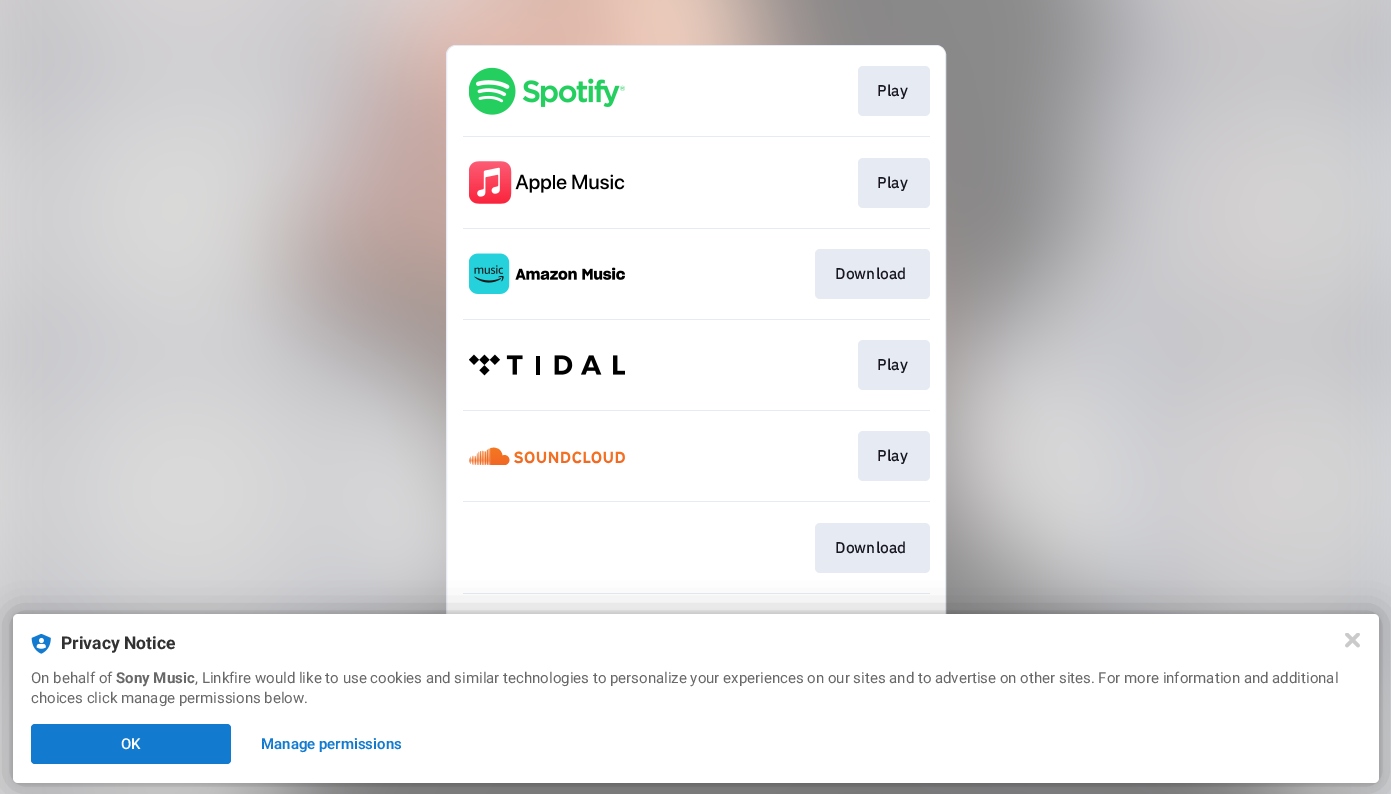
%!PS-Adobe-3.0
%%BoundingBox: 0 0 1391 794
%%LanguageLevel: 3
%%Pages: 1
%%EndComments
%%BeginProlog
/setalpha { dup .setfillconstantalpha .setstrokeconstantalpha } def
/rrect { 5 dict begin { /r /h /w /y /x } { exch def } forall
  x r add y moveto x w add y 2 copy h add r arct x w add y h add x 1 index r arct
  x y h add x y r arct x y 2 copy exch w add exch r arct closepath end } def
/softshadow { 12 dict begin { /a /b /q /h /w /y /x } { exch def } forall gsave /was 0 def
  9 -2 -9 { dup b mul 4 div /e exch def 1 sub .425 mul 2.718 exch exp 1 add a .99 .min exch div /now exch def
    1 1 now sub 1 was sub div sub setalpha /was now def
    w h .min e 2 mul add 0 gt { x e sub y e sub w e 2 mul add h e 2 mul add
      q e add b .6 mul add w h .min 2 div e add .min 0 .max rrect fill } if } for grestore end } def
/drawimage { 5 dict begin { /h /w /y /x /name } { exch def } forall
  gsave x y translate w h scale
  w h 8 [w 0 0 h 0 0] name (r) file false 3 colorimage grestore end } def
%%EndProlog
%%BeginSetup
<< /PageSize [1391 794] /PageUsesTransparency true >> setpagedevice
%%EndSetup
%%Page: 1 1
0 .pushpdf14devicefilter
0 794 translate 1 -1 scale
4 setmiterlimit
1 setgray
0 0 1391 794 rectfill
(images/1.raw) 0 0 1391 794 drawimage
446.5 45.5 499 639 9.5 rrect gsave fill grestore
0.902 0.918 0.949 setrgbcolor
stroke
1 setgray
448 46 497 638 9 rrect fill
(images/2.raw) 469 67 156 48 drawimage
0.902 0.918 0.949 setrgbcolor
858 66 72 50 5 rrect fill
463 136 467 1 rectfill
(images/3.raw) 469 161 156 43 drawimage
858 158 72 50 5 rrect fill
463 228 467 1 rectfill
(images/4.raw) 469 253 156 41 drawimage
815 249 115 50 5 rrect fill
463 319 467 1 rectfill
(images/5.raw) 469 354 156 22 drawimage
858 340 72 50 5 rrect fill
463 410 467 1 rectfill
(images/6.raw) 469 447 156 18 drawimage
858 431 72 50 5 rrect fill
463 501 467 1 rectfill
815 523 115 50 5 rrect fill
463 593 467 1 rectfill
0 setgray
13 614 1366 169 5 2.5 0.12 softshadow
13 614 1366 169 5 15 0.3 softshadow
1 setgray
13 614 1366 169 5 rrect fill
(images/7.raw) 31 634 20 20 drawimage
0.075 0.482 0.812 setrgbcolor
31 724 200 40 4 rrect fill
(images/8.raw) 1345 633 15 15 drawimage
/IBMPlexSans-Bold [15 0 0 -15 0 0] selectfont
0.094 0.09 0.129 setrgbcolor
877 96 moveto 0.5 0 (Play) ashow
877 188 moveto 0.5 0 (Play) ashow
835 279 moveto 0.5 0 (Download) ashow
877 370 moveto 0.5 0 (Play) ashow
877 461 moveto 0.5 0 (Play) ashow
835 553 moveto 0.5 0 (Download) ashow
/Roboto-Bold [17.5 0 0 -17.5 0 0] selectfont
0.196 setgray
61 649 moveto (Privacy Notice) show
/Roboto-Regular [15 0 0 -15 0 0] selectfont
0.408 setgray
31 683 moveto (On behalf of) show
/Roboto-Bold [15 0 0 -15 0 0] selectfont
116 683 moveto (Sony Music) show
/Roboto-Regular [15 0 0 -15 0 0] selectfont
195 683 moveto (, Linkfire would like to use cookies and similar technologies to personalize your experiences on our sites and to advertise on other sites. For more information and additional) show
31 703 moveto (choices click manage permissions below.) show
/Roboto-Medium [15 0 0 -15 0 0] selectfont
1 setgray
121 749 moveto (OK) show
/Roboto-SemiBold [15 0 0 -15 0 0] selectfont
0.075 0.482 0.812 setrgbcolor
261 749 moveto (Manage permissions) show
.poppdf14devicefilter showpage
%%EOF
